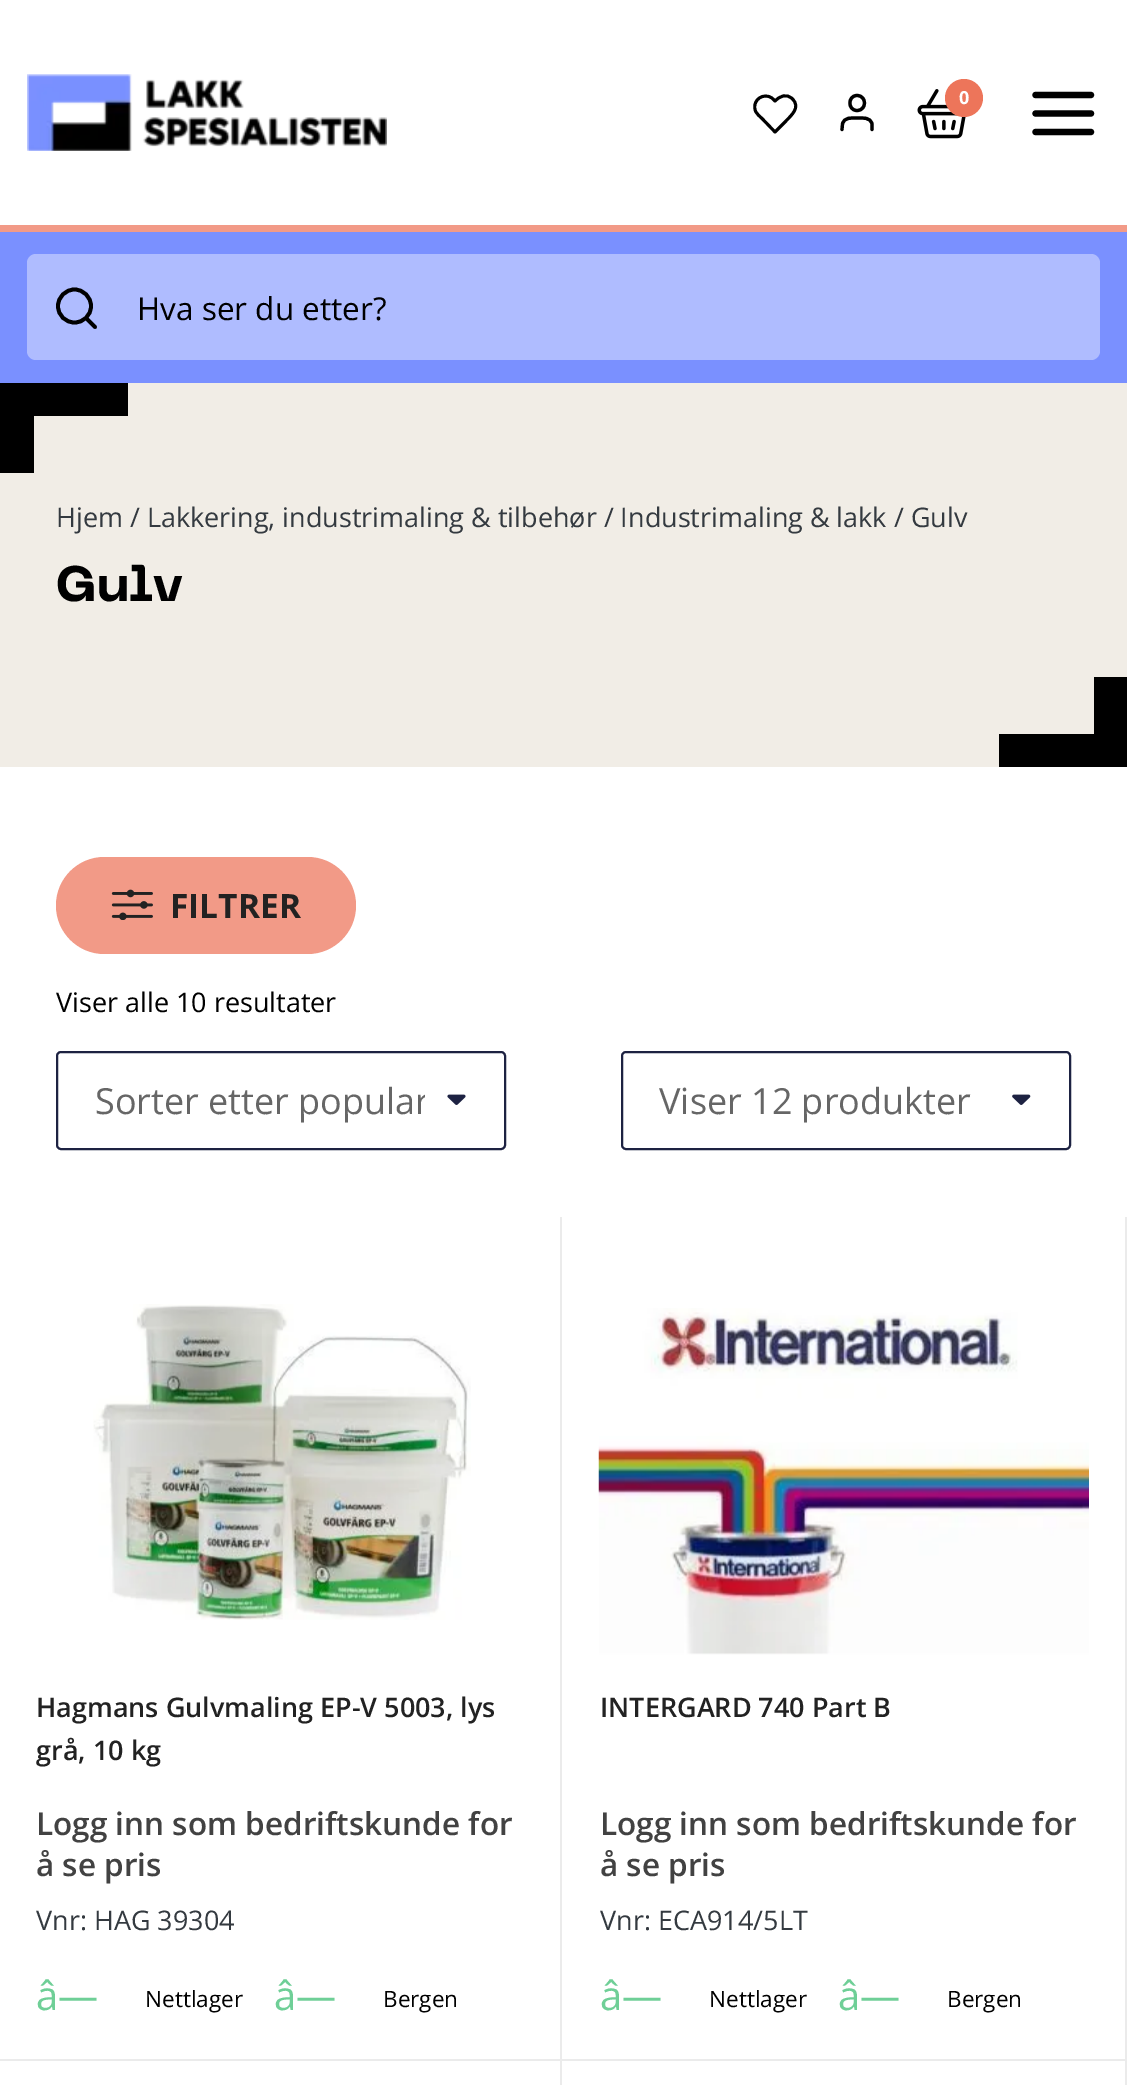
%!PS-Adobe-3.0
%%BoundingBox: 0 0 1127 2085
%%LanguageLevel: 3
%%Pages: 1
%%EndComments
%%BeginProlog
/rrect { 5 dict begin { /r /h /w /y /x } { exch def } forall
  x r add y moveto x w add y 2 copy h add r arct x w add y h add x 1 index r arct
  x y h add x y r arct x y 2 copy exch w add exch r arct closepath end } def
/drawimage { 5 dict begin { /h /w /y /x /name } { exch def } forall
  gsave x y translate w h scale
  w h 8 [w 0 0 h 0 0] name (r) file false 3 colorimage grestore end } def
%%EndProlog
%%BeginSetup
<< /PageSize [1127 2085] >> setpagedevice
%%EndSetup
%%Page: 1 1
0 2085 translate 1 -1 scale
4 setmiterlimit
1 setgray
0 0 1127 2085 rectfill
0.949 0.604 0.529 setrgbcolor
0 225 1127 7 rectfill
(images/1.raw) 27 74 360 77 drawimage
0 setgray
2.9 setlinewidth
1 setlinecap
1 setlinejoin
newpath 792.5 99 moveto 786.5 93 780 96 775 101 curveto 773 99 771.5 97 768.5 96.5 curveto 760 94 752 102.5 755.5 111 curveto 756.5 114 760 116.5 762.5 119 curveto 775 132 lineto 785.5 121.5 lineto 791 115.5 801 107.5 792.5 99 curveto closepath stroke
3.2 setlinewidth
newpath 872 129.5 moveto 872 124 lineto 870.5 117 863 118 857 118 curveto 851.5 118 844 117 842.5 124 curveto 842 129.5 lineto 857 110.5 moveto 867 110.5 867 95.5 857 95.5 curveto 847.5 95.5 847.5 110.5 857 110.5 curveto closepath stroke
(images/2.raw) 917 89 49 50 drawimage
0.929 0.459 0.353 setrgbcolor
newpath 964 98 19 0 360 arc closepath fill
0 setgray
6.2 setlinewidth
newpath 1035.5 113.5 moveto 1091 113.5 lineto 1035.5 95 moveto 1091 95 lineto 1035.5 132 moveto 1091 132 lineto stroke
0.478 0.565 1 setrgbcolor
0 232 1127 151 rectfill
0.686 0.737 1 setrgbcolor
27 254 1073 106 9 rrect fill
0 setgray
3.8 setlinewidth
newpath 74.5 322.5 moveto 83.5 322.5 91 315.5 91 306 curveto 91 297 83.5 289.5 74.5 289.5 curveto 65.5 289.5 58 297 58 306 curveto 58 315.5 65.5 322.5 74.5 322.5 curveto closepath 95 327 moveto 86 318 lineto stroke
0.945 0.929 0.902 setrgbcolor
0 383 1127 384 rectfill
0 setgray
34 383 94 33 rectfill
0 383 34 90 rectfill
999 734 95 33 rectfill
1094 677 33 90 rectfill
0.949 0.604 0.529 setrgbcolor
56 857 300 97 48.5 rrect fill
(images/3.raw) 111 889 42 31 drawimage
(images/4.raw) 447 1094 19 11 drawimage
0.114 0.133 0.259 setrgbcolor
2 setlinewidth
0 setlinecap
0 setlinejoin
57 1052 448 97 4 rrect stroke
(images/5.raw) 1012 1094 19 11 drawimage
622 1052 448 97 4 rrect stroke
0.922 setgray
560 1217 2 868 rectfill
0 2059 563 2 rectfill
(images/6.raw) 93 1304 378 316 drawimage
1125 1217 2 868 rectfill
563 2059 564 2 rectfill
(images/7.raw) 598 1308 491 347 drawimage
/OpenSans-Bold [18 0 0 -18 0 0] selectfont
1 setgray
959 104 moveto (0) show
/OpenSans-Regular [31.5 0 0 -31.5 0 0] selectfont
0 setgray
137 320 moveto (Hva ser du etter?) show
/OpenSans-Regular [27 0 0 -27 0 0] selectfont
0.204 0.227 0.251 setrgbcolor
56 527 moveto (Hjem / Lakkering, industrimaling & tilbehør / Industrimaling & lakk / Gulv) show
/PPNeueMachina-Bold [49.5 0 0 -49.5 0 0] selectfont
0 setgray
56 601 moveto (Gulv) show
/OpenSans-Bold [33.5 0 0 -33.5 0 0] selectfont
0.133 setgray
170 918 moveto (FILTRER) show
/OpenSans-Regular [27 0 0 -27 0 0] selectfont
0 setgray
56 1012 moveto (Viser alle 10 resultater) show
gsave
95 1076 330 49 rectclip
/OpenSans-Regular [36 0 0 -36 0 0] selectfont
0.4 setgray
95 1114 moveto (Sorter etter popular) show
grestore
/OpenSans-Regular [36 0 0 -36 0 0] selectfont
0.4 setgray
659 1114 moveto (Viser 12 produkter) show
/OpenSans-SemiBold [27 0 0 -27 0 0] selectfont
0.133 setgray
36 1717 moveto (Hagmans Gulvmaling EP-V 5003, lys) show
36 1760 moveto (grå, 10 kg) show
/OpenSans-SemiBold [31.5 0 0 -31.5 0 0] selectfont
0.259 setgray
36 1835 moveto (Logg inn som bedriftskunde for) show
36 1876 moveto (å se pris) show
/OpenSans-Regular [27 0 0 -27 0 0] selectfont
0.204 0.227 0.251 setrgbcolor
36 1930 moveto (Vnr: HAG 39304) show
/OpenSans-Regular [40 0 0 -40 0 0] selectfont
0.435 0.812 0.592 setrgbcolor
36 2010 moveto (â—) show
/OpenSans-Regular [22.5 0 0 -22.5 0 0] selectfont
0 setgray
145 2007 moveto (Nettlager) show
/OpenSans-Regular [40 0 0 -40 0 0] selectfont
0.435 0.812 0.592 setrgbcolor
274 2010 moveto (â—) show
/OpenSans-Regular [22.5 0 0 -22.5 0 0] selectfont
0 setgray
383 2007 moveto (Bergen) show
/OpenSans-SemiBold [27 0 0 -27 0 0] selectfont
0.133 setgray
600 1717 moveto (INTERGARD 740 Part B) show
/OpenSans-SemiBold [31.5 0 0 -31.5 0 0] selectfont
0.259 setgray
600 1835 moveto (Logg inn som bedriftskunde for) show
600 1876 moveto (å se pris) show
/OpenSans-Regular [27 0 0 -27 0 0] selectfont
0.204 0.227 0.251 setrgbcolor
600 1930 moveto (Vnr: ECA914/5LT) show
/OpenSans-Regular [40 0 0 -40 0 0] selectfont
0.435 0.812 0.592 setrgbcolor
600 2010 moveto (â—) show
/OpenSans-Regular [22.5 0 0 -22.5 0 0] selectfont
0 setgray
709 2007 moveto (Nettlager) show
/OpenSans-Regular [40 0 0 -40 0 0] selectfont
0.435 0.812 0.592 setrgbcolor
838 2010 moveto (â—) show
/OpenSans-Regular [22.5 0 0 -22.5 0 0] selectfont
0 setgray
947 2007 moveto (Bergen) show
showpage
%%EOF
